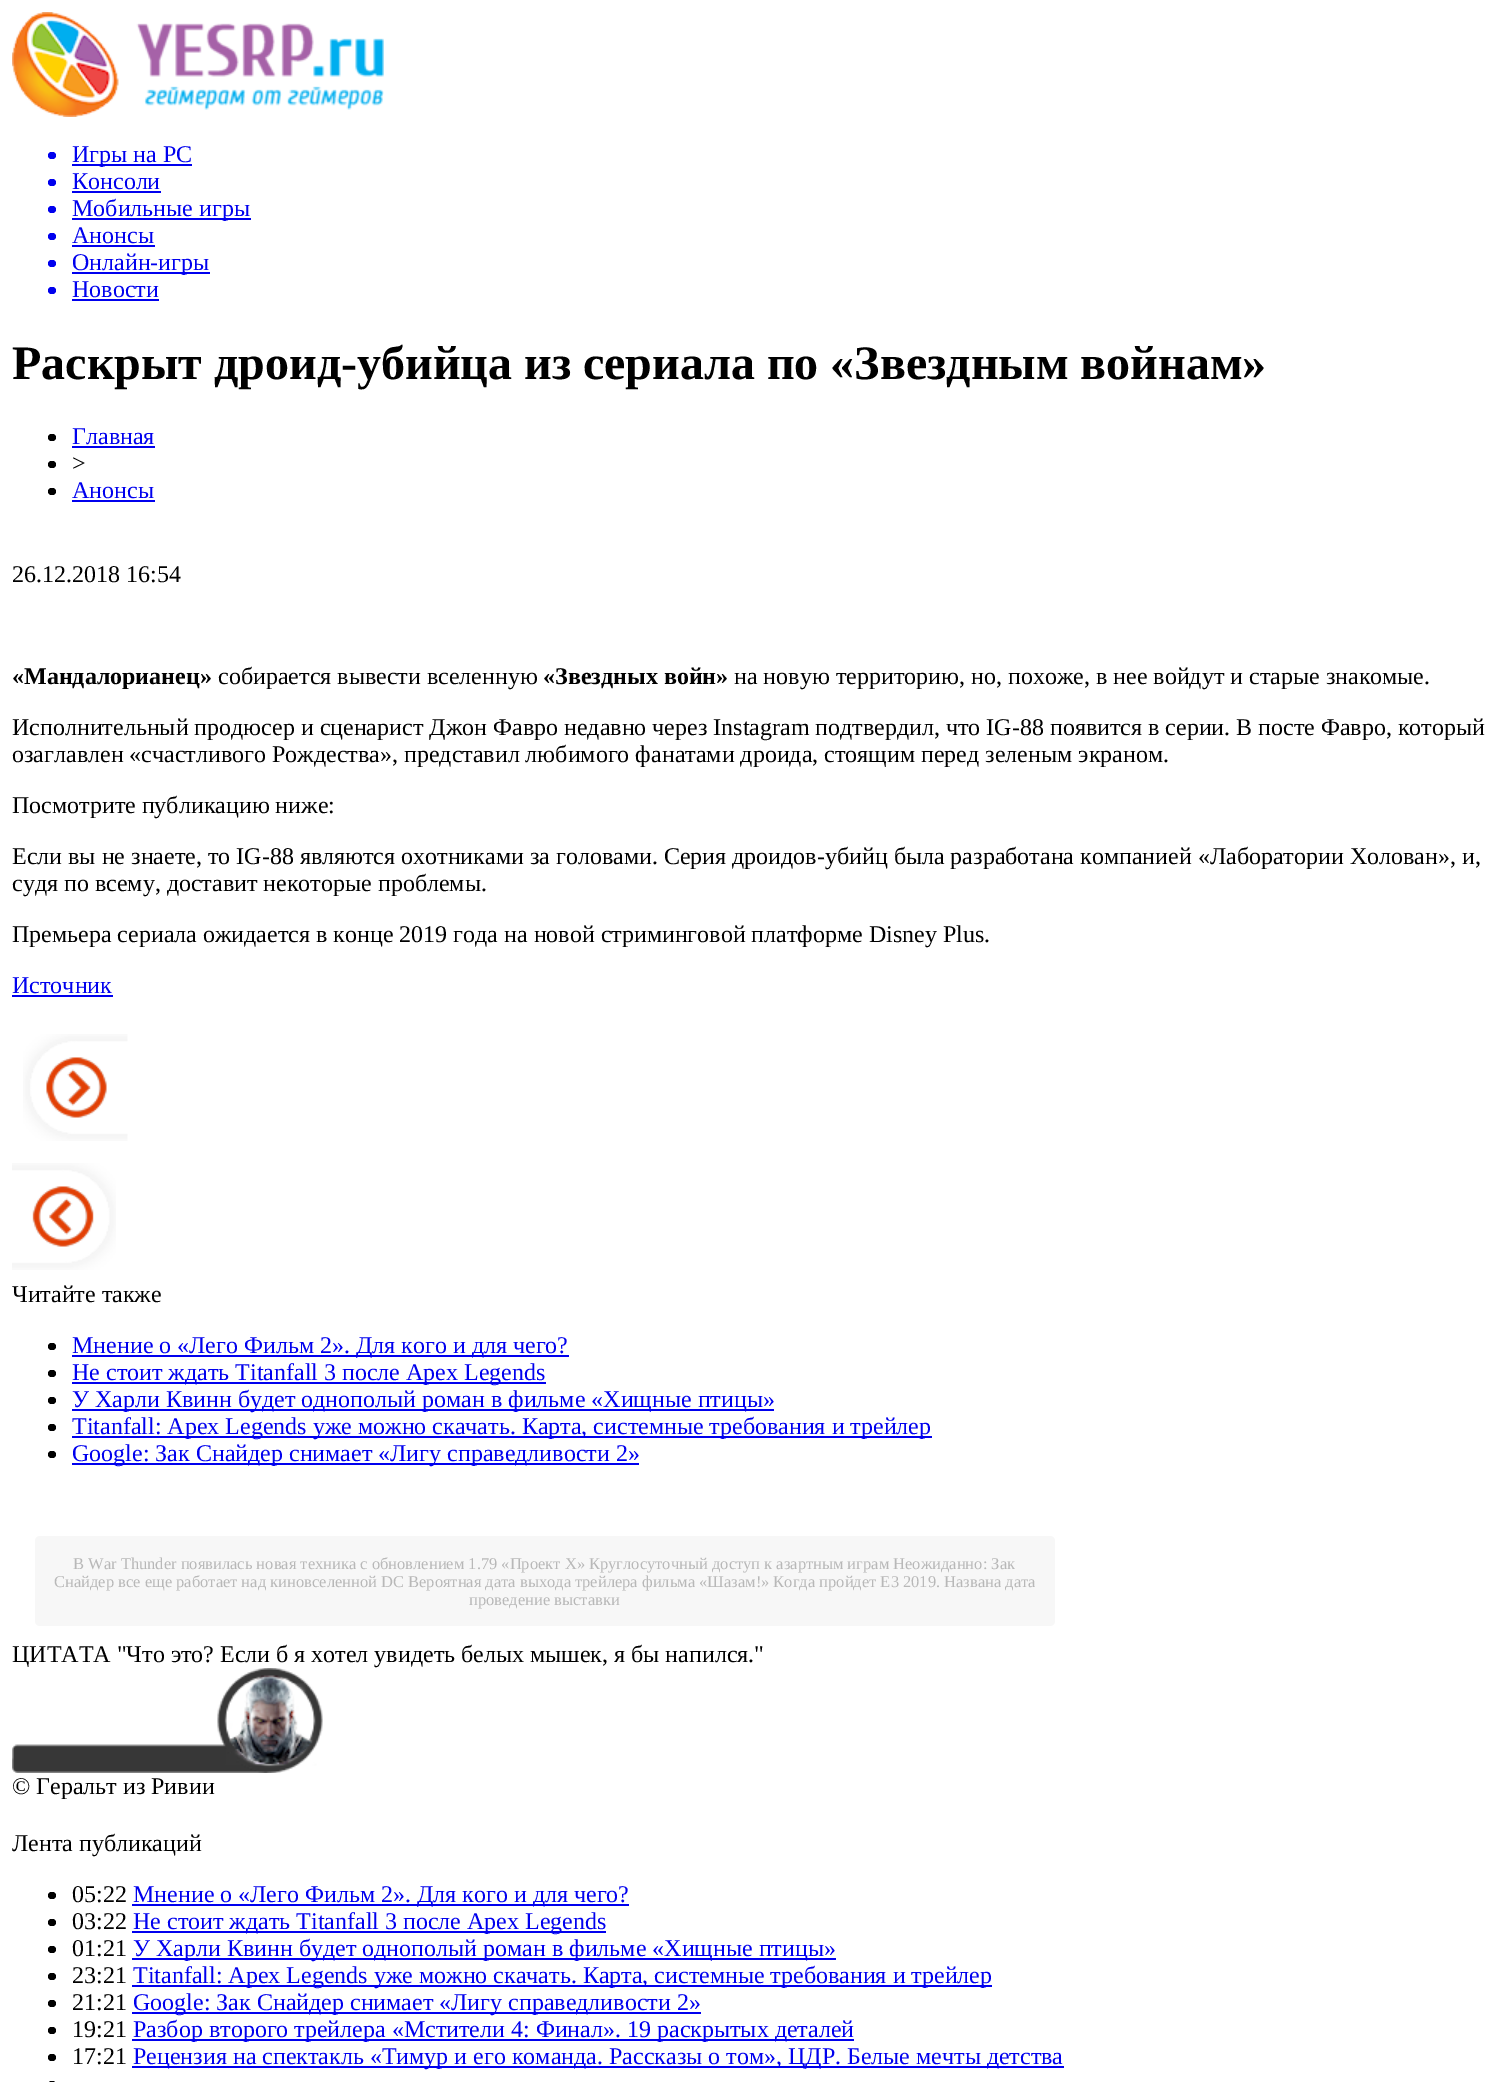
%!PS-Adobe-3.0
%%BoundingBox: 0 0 1501 2082
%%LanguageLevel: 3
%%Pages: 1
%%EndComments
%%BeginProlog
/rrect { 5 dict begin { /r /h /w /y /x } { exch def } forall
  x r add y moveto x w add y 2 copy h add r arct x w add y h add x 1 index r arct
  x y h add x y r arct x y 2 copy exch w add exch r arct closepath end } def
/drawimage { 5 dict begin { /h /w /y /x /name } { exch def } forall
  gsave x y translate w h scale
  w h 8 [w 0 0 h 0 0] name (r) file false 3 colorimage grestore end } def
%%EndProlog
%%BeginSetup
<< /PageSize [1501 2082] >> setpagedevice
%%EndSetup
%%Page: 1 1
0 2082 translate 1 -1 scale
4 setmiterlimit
1 setgray
0 0 1501 2082 rectfill
(images/1.raw) 12 12 372 105 drawimage
0 0 0.933 setrgbcolor
48 152 8 7 3.5 rrect fill
72 164 120 2 rectfill
48 179 8 7 3.5 rrect fill
72 191 89 2 rectfill
48 206 8 7 3.5 rrect fill
72 218 179 2 rectfill
48 233 8 7 3.5 rrect fill
72 245 83 2 rectfill
48 260 8 7 3.5 rrect fill
72 272 138 2 rectfill
48 287 8 7 3.5 rrect fill
72 299 87 2 rectfill
0 setgray
48 434 8 7 3.5 rrect fill
0 0 0.933 setrgbcolor
72 446 83 2 rectfill
0 setgray
48 461 8 7 3.5 rrect fill
48 488 8 7 3.5 rrect fill
0 0 0.933 setrgbcolor
72 500 83 2 rectfill
12 995 101 2 rectfill
(images/2.raw) 23 1034 105 107 drawimage
(images/3.raw) 12 1163 104 107 drawimage
0 setgray
48 1343 8 7 3.5 rrect fill
0 0 0.933 setrgbcolor
72 1355 497 2 rectfill
0 setgray
48 1370 8 7 3.5 rrect fill
0 0 0.933 setrgbcolor
72 1382 474 2 rectfill
0 setgray
48 1397 8 7 3.5 rrect fill
0 0 0.933 setrgbcolor
72 1409 702 2 rectfill
0 setgray
48 1424 8 7 3.5 rrect fill
0 0 0.933 setrgbcolor
72 1436 860 2 rectfill
0 setgray
48 1451 8 7 3.5 rrect fill
0 0 0.933 setrgbcolor
72 1463 567 2 rectfill
0.969 setgray
35 1536 1020 90 5 rrect fill
(images/4.raw) 12 1668 311 105 drawimage
0 setgray
48 1892 8 7 3.5 rrect fill
0 0 0.933 setrgbcolor
132 1904 497 2 rectfill
0 setgray
48 1919 8 7 3.5 rrect fill
0 0 0.933 setrgbcolor
132 1931 474 2 rectfill
0 setgray
48 1946 8 7 3.5 rrect fill
0 0 0.933 setrgbcolor
132 1958 704 2 rectfill
0 setgray
48 1973 8 7 3.5 rrect fill
0 0 0.933 setrgbcolor
132 1985 860 2 rectfill
0 setgray
48 2000 8 7 3.5 rrect fill
0 0 0.933 setrgbcolor
132 2012 569 2 rectfill
0 setgray
48 2027 8 7 3.5 rrect fill
0 0 0.933 setrgbcolor
132 2039 722 2 rectfill
0 setgray
48 2054 8 7 3.5 rrect fill
0 0 0.933 setrgbcolor
132 2066 932 2 rectfill
0 setgray
48 2081 8 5 3.5 rrect fill
/LiberationSerif-Regular [24 0 0 -24 0 0] selectfont
0 0 0.933 setrgbcolor
72 162 moveto (Игры на PC) show
72 189 moveto (Консоли) show
72 216 moveto (Мобильные игры) show
72 243 moveto (Анонсы) show
72 270 moveto (Онлайн-игры) show
72 297 moveto (Новости) show
/LiberationSerif-Bold [48 0 0 -48 0 0] selectfont
0 setgray
12 379 moveto (Раскрыт дроид-убийца из сериала по «Звездным войнам») show
/LiberationSerif-Regular [24 0 0 -24 0 0] selectfont
0 0 0.933 setrgbcolor
72 444 moveto (Главная) show
0 setgray
72 471 moveto (>) show
0 0 0.933 setrgbcolor
72 498 moveto (Анонсы) show
0 setgray
12 582 moveto (26.12.2018 16:54) show
/LiberationSerif-Bold [24 0 0 -24 0 0] selectfont
12 684 moveto («Мандалорианец») show
/LiberationSerif-Regular [24 0 0 -24 0 0] selectfont
218 684 moveto (собирается вывести вселенную) show
/LiberationSerif-Bold [24 0 0 -24 0 0] selectfont
543 684 moveto («Звездных войн») show
/LiberationSerif-Regular [24 0 0 -24 0 0] selectfont
734 684 moveto (на новую территорию, но, похоже, в нее войдут и старые знакомые.) show
12 735 moveto (Исполнительный продюсер и сценарист Джон Фавро недавно через Instagram подтвердил, что IG-88 появится в серии. В посте Фавро, который) show
12 762 moveto (озаглавлен «счастливого Рождества», представил любимого фанатами дроида, стоящим перед зеленым экраном.) show
12 813 moveto (Посмотрите публикацию ниже:) show
12 864 moveto (Если вы не знаете, то IG-88 являются охотниками за головами. Серия дроидов-убийц была разработана компанией «Лаборатории Холован», и,) show
12 891 moveto (судя по всему, доставит некоторые проблемы.) show
12 942 moveto (Премьера сериала ожидается в конце 2019 года на новой стриминговой платформе Disney Plus.) show
0 0 0.933 setrgbcolor
12 993 moveto (Источник) show
0 setgray
12 1302 moveto (Читайте также) show
0 0 0.933 setrgbcolor
72 1353 moveto (Мнение о «Лего Фильм 2». Для кого и для чего?) show
72 1380 moveto (Не стоит ждать Titanfall 3 после Apex Legends) show
72 1407 moveto (У Харли Квинн будет однополый роман в фильме «Хищные птицы») show
72 1434 moveto (Titanfall: Apex Legends уже можно скачать. Карта, системные требования и трейлер) show
72 1461 moveto (Google: Зак Снайдер снимает «Лигу справедливости 2») show
/LiberationSerif-Regular [16.5 0 0 -16.5 0 0] selectfont
0.722 setgray
73 1569 moveto (В War Thunder появилась новая техника с обновлением 1.79 «Проект Х» Круглосуточный доступ к азартным играм Неожиданно: Зак) show
54 1587 moveto (Снайдер все еще работает над киновселенной DC Вероятная дата выхода трейлера фильма «Шазам!» Когда пройдет Е3 2019. Названа дата) show
469 1605 moveto (проведение выставки) show
/LiberationSerif-Regular [24 0 0 -24 0 0] selectfont
0 setgray
12 1662 moveto (ЦИТАТА "Что это? Если б я хотел увидеть белых мышек, я бы напился.") show
12 1794 moveto (© Геральт из Ривии) show
12 1851 moveto (Лента публикаций) show
72 1902 moveto (05:22) show
0 0 0.933 setrgbcolor
133 1902 moveto (Мнение о «Лего Фильм 2». Для кого и для чего?) show
0 setgray
72 1929 moveto (03:22) show
0 0 0.933 setrgbcolor
133 1929 moveto (Не стоит ждать Titanfall 3 после Apex Legends) show
0 setgray
72 1956 moveto (01:21) show
0 0 0.933 setrgbcolor
133 1956 moveto (У Харли Квинн будет однополый роман в фильме «Хищные птицы») show
0 setgray
72 1983 moveto (23:21) show
0 0 0.933 setrgbcolor
133 1983 moveto (Titanfall: Apex Legends уже можно скачать. Карта, системные требования и трейлер) show
0 setgray
72 2010 moveto (21:21) show
0 0 0.933 setrgbcolor
133 2010 moveto (Google: Зак Снайдер снимает «Лигу справедливости 2») show
0 setgray
72 2037 moveto (19:21) show
0 0 0.933 setrgbcolor
133 2037 moveto (Разбор второго трейлера «Мстители 4: Финал». 19 раскрытых деталей) show
0 setgray
72 2064 moveto (17:21) show
0 0 0.933 setrgbcolor
133 2064 moveto (Рецензия на спектакль «Тимур и его команда. Рассказы о том», ЦДР. Белые мечты детства) show
showpage
%%EOF
